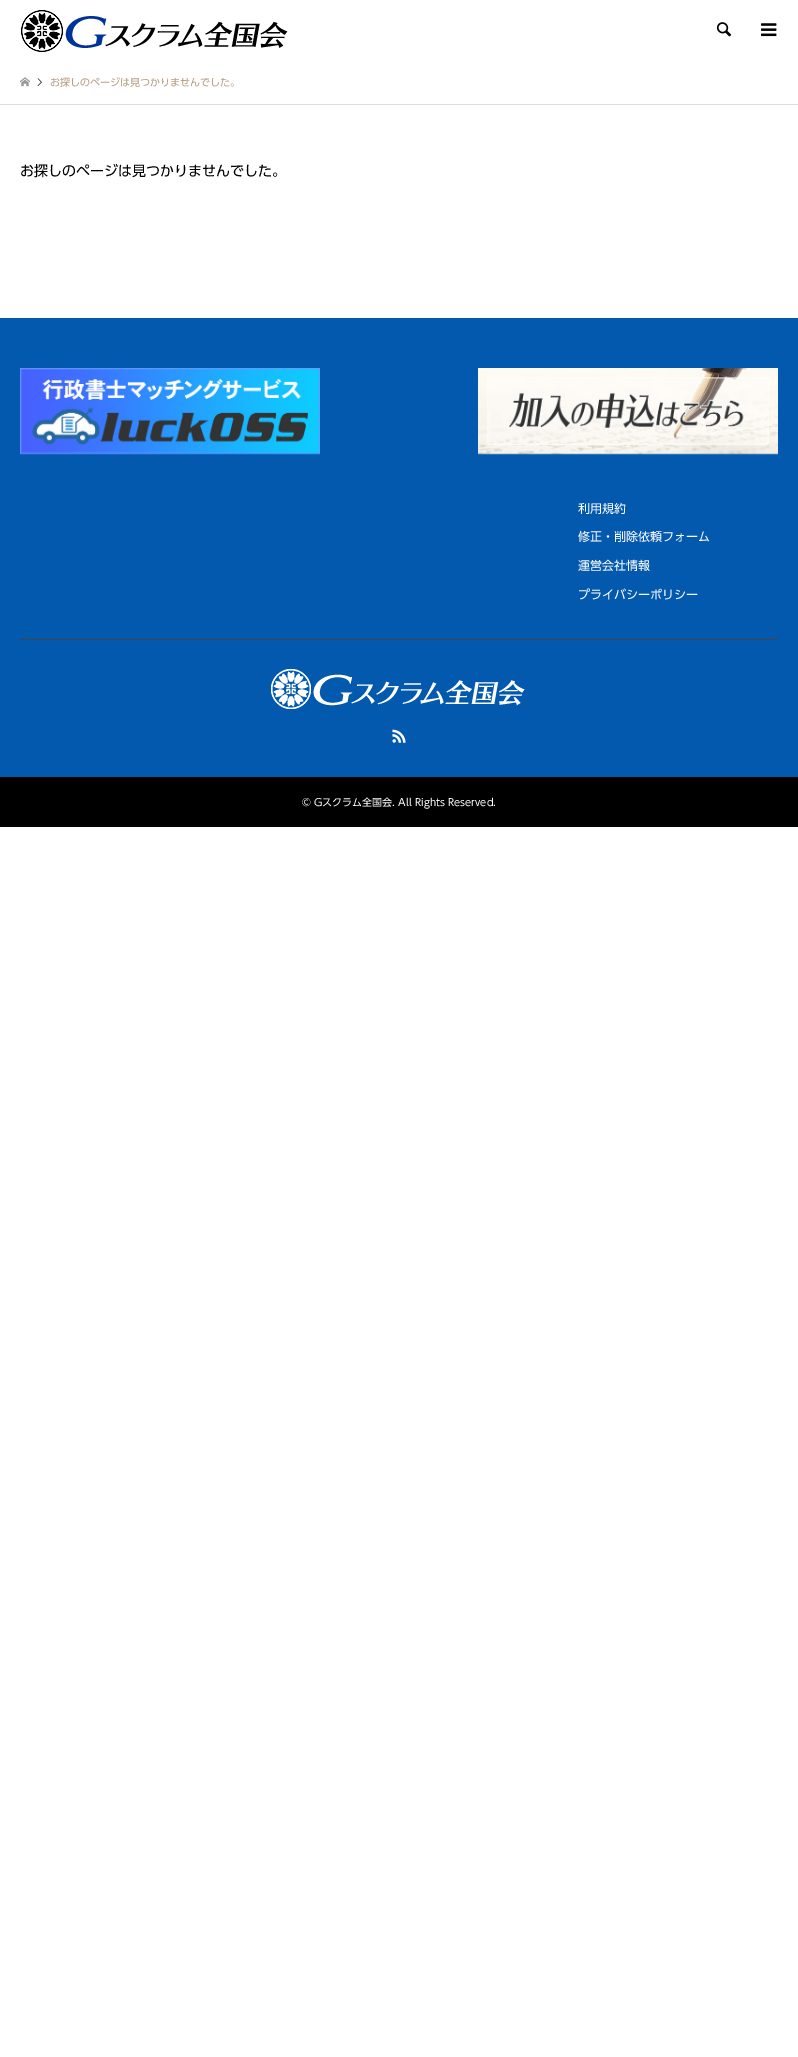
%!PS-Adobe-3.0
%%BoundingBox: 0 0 798 2057
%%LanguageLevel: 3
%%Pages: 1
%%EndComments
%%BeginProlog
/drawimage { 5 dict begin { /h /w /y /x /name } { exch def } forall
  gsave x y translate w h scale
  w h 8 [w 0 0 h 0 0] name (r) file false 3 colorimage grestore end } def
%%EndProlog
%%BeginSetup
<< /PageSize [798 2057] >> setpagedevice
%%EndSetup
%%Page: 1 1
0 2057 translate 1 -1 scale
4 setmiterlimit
1 setgray
0 0 798 2057 rectfill
(images/1.raw) 21 10 267 42 drawimage
(images/2.raw) 716 22 16 15 drawimage
(images/3.raw) 761 23 16 14 drawimage
0.867 setgray
0 104 798 1 rectfill
(images/4.raw) 20 77 10 10 drawimage
(images/5.raw) 37 78 5 8 drawimage
0.012 0.349 0.682 setrgbcolor
0 318 798 459 rectfill
0.267 setgray
20 639 758 1 rectfill
(images/6.raw) 20 368 300 87 drawimage
(images/7.raw) 478 368 300 87 drawimage
(images/8.raw) 271 669 254 40 drawimage
(images/9.raw) 392 729 14 14 drawimage
0 setgray
0 777 798 50 rectfill
/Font-Regular [10 0 0 -10 0 0] selectfont
0.714 0.62 0.518 setrgbcolor
50 86 moveto (お探しのページは見つかりませんでした。) show
/Font-Regular [14 0 0 -14 0 0] selectfont
0 setgray
20 176 moveto (お探しのページは見つかりませんでした。) show
/Font-Regular [12 0 0 -12 0 0] selectfont
1 setgray
578 513 moveto (利用規約) show
578 541 moveto (修正・削除依頼フォーム) show
578 570 moveto (運営会社情報) show
578 599 moveto (プライバシーポリシー) show
/Font-Regular [10 0 0 -10 0 0] selectfont
302 806 moveto (© Gスクラム全国会. All Rights Reserved.) show
showpage
%%EOF
